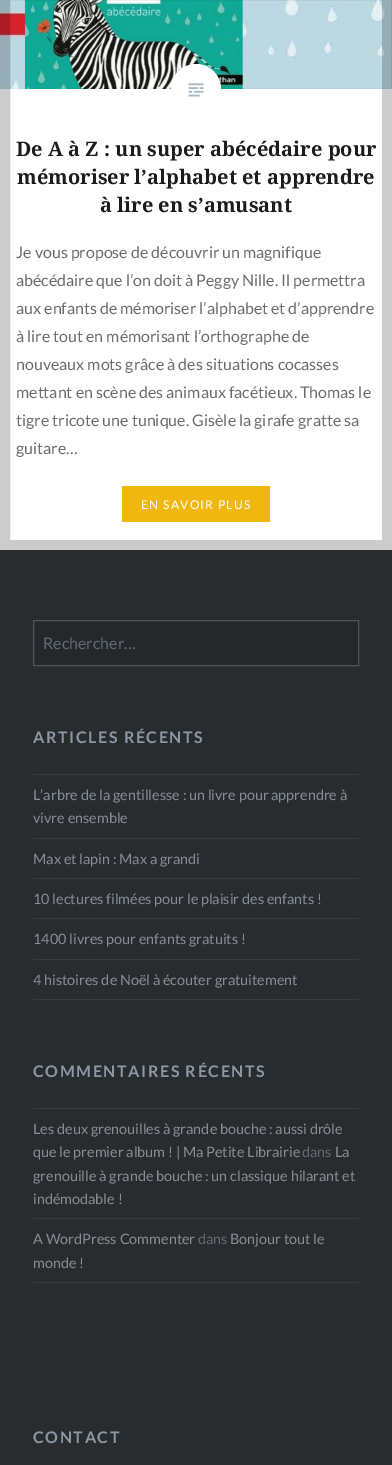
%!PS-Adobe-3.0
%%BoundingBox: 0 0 392 1465
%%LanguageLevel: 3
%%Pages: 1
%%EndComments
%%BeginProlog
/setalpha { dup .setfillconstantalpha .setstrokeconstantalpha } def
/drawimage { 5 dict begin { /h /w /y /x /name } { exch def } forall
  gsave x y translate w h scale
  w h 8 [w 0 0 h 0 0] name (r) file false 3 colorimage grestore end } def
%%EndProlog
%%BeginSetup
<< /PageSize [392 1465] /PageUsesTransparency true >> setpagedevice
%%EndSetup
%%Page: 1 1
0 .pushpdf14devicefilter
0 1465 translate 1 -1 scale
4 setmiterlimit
1 setgray
0 0 392 1465 rectfill
(images/1.raw) 0 0 392 89 drawimage
newpath 196 89 25 0 360 arc closepath fill
0.2 setalpha
0 setgray
10 setlinewidth
5 -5 382 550 rectstroke
1 setalpha
(images/2.raw) 188 83 16 14 drawimage
0.941 0.722 0.055 setrgbcolor
122 486 148 36 rectfill
0.161 0.173 0.184 setrgbcolor
0 550 392 915 rectfill
0.145 0.157 0.165 setrgbcolor
newpath 33.5 620.5 moveto 358.5 620.5 lineto 358.5 665.5 lineto 33.5 665.5 lineto closepath gsave fill grestore
0.302 0.329 0.357 setrgbcolor
1 setlinewidth
stroke
0.212 0.231 0.251 setrgbcolor
33 774 326 1 rectfill
33 838 326 1 rectfill
33 878 326 1 rectfill
33 918 326 1 rectfill
33 959 326 1 rectfill
33 999 326 1 rectfill
33 1108 326 1 rectfill
33 1218 326 1 rectfill
33 1282 326 1 rectfill
/NotoSerif-Bold [20 0 0 -20 0 0] selectfont
0.102 0.11 0.118 setrgbcolor
16 156 moveto (De A à Z : un super abécédaire pour) show
17 184 moveto (mémoriser l’alphabet et apprendre) show
100 212 moveto (à lire en s’amusant) show
/Lato-Regular [16 0 0 -16 0 0] selectfont
0.416 0.424 0.431 setrgbcolor
16 258 moveto (Je vous propose de découvrir un magnifique) show
16 286 moveto (abécédaire que l’on doit à Peggy Nille. Il permettra) show
16 314 moveto (aux enfants de mémoriser l’alphabet et d’apprendre) show
16 342 moveto (à lire tout en mémorisant l’orthographe de) show
16 370 moveto (nouveaux mots grâce à des situations cocasses) show
16 398 moveto (mettant en scène des animaux facétieux. Thomas le) show
16 426 moveto (tigre tricote une tunique. Gisèle la girafe gratte sa) show
16 454 moveto (guitare…) show
/Lato-Regular [12 0 0 -12 0 0] selectfont
1 setgray
141 509 moveto 1.25 0 (EN SAVOIR PLUS) ashow
/Lato-Regular [16 0 0 -16 0 0] selectfont
0.38 0.416 0.455 setrgbcolor
43 649 moveto (Rechercher…) show
/Lato-Bold [16 0 0 -16 0 0] selectfont
0.549 0.592 0.635 setrgbcolor
33 743 moveto 1.6 0 (ARTICLES RÉCENTS) ashow
/Lato-Regular [14.4 0 0 -14.4 0 0] selectfont
0.522 0.553 0.584 setrgbcolor
33 800 moveto (L’arbre de la gentillesse : un livre pour apprendre à) show
33 823 moveto (vivre ensemble) show
33 864 moveto (Max et lapin : Max a grandi) show
33 904 moveto (10 lectures filmées pour le plaisir des enfants !) show
33 944 moveto (1400 livres pour enfants gratuits !) show
33 985 moveto (4 histoires de Noël à écouter gratuitement) show
/Lato-Bold [16 0 0 -16 0 0] selectfont
0.549 0.592 0.635 setrgbcolor
33 1077 moveto 1.6 0 (COMMENTAIRES RÉCENTS) ashow
/Lato-Regular [14.4 0 0 -14.4 0 0] selectfont
0.522 0.553 0.584 setrgbcolor
33 1134 moveto (Les deux grenouilles à grande bouche : aussi drôle) show
33 1157 moveto (que le premier album ! | Ma Petite Librairie) show
0.38 0.416 0.455 setrgbcolor
302 1157 moveto (dans) show
0.522 0.553 0.584 setrgbcolor
335 1157 moveto (La) show
33 1181 moveto (grenouille à grande bouche : un classique hilarant et) show
33 1204 moveto (indémodable !) show
33 1244 moveto (A WordPress Commenter) show
0.38 0.416 0.455 setrgbcolor
198 1244 moveto (dans) show
0.522 0.553 0.584 setrgbcolor
230 1244 moveto (Bonjour tout le) show
33 1268 moveto (monde !) show
/Lato-Bold [16 0 0 -16 0 0] selectfont
0.549 0.592 0.635 setrgbcolor
33 1443 moveto 1.6 0 (CONTACT) ashow
.poppdf14devicefilter showpage
%%EOF
